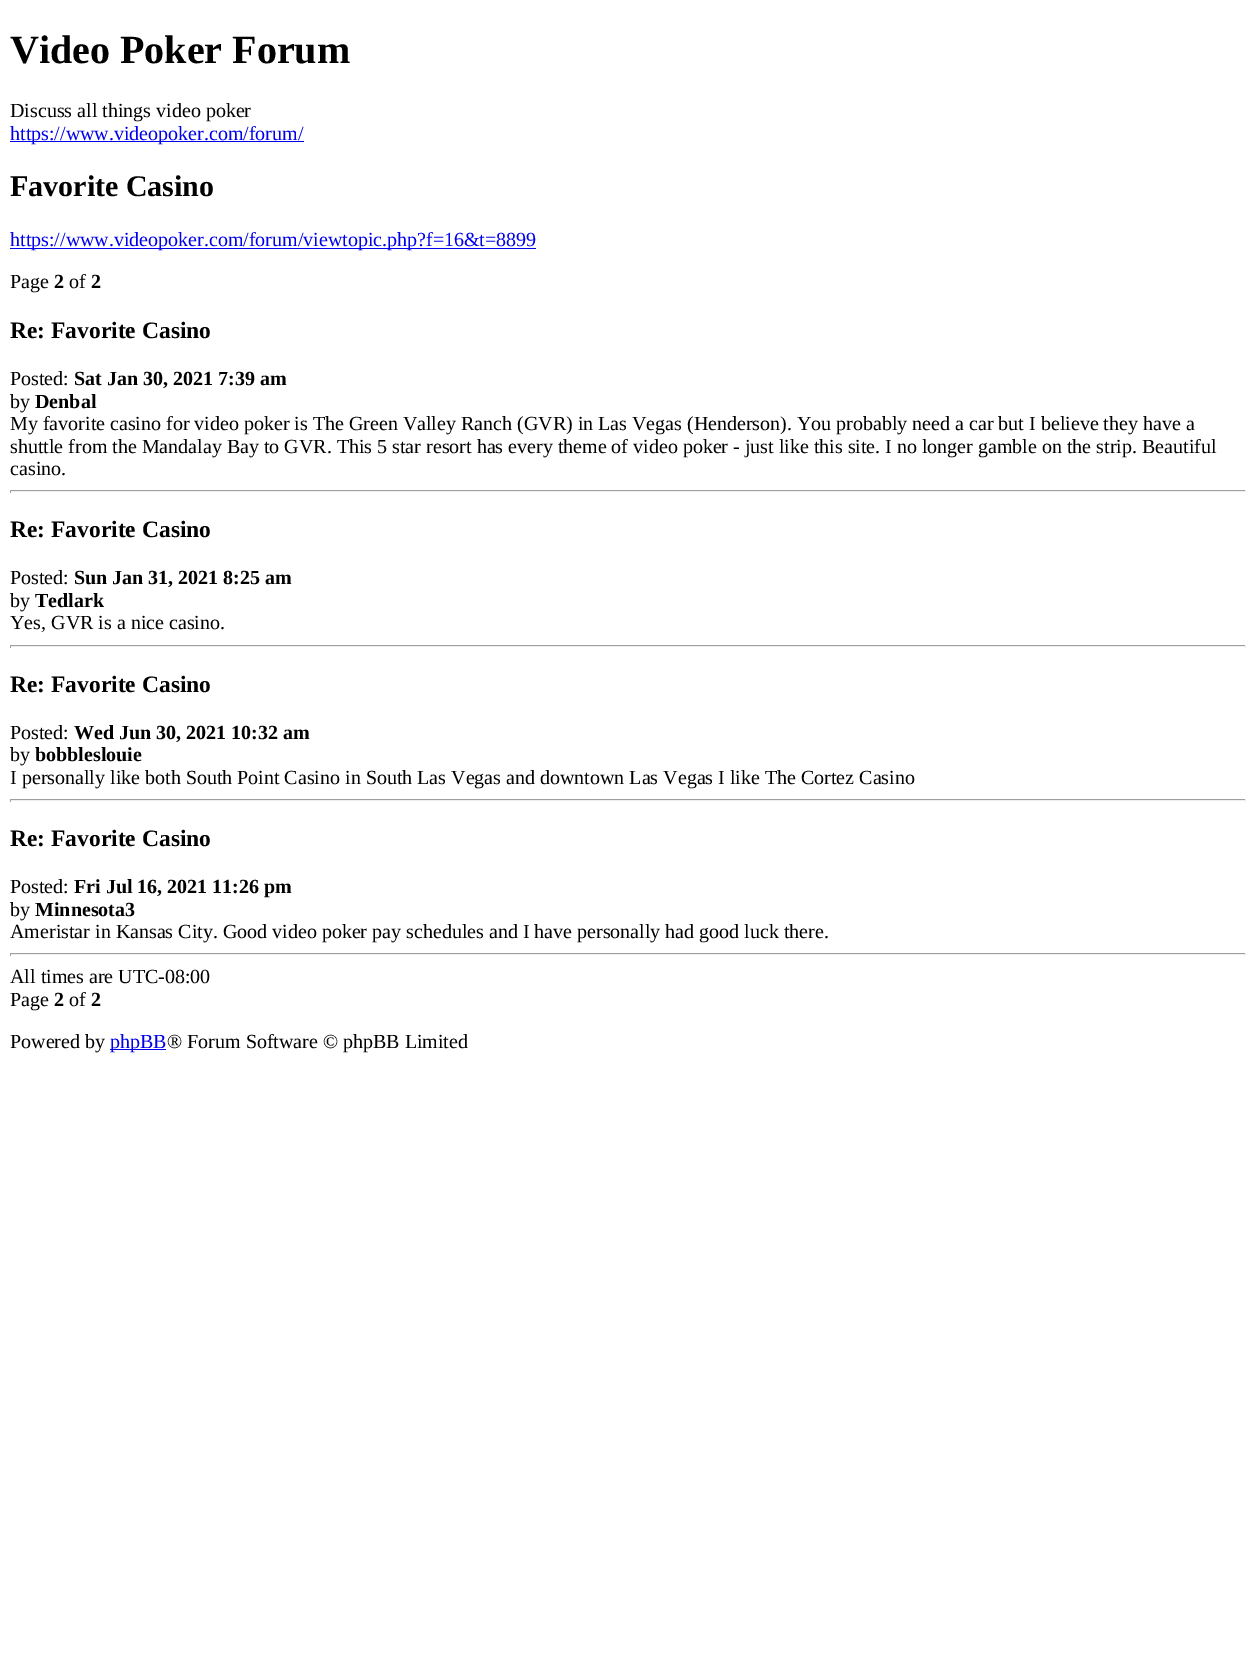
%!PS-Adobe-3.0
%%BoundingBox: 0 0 1256 1673
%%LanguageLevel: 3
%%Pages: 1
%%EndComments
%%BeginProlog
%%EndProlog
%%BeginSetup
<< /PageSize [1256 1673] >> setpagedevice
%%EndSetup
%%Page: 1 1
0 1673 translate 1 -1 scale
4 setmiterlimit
1 setgray
0 0 1256 1673 rectfill
0 0 0.933 setrgbcolor
10 141 294 1 rectfill
10 248 526 1 rectfill
0.624 setgray
10 490 1236 1 rectfill
0.933 setgray
1245 490 1 3 rectfill
10 491 1236 1 rectfill
0.624 setgray
10 490 1 3 rectfill
10 645 1236 1 rectfill
0.933 setgray
1245 645 1 3 rectfill
10 646 1236 1 rectfill
0.624 setgray
10 645 1 3 rectfill
10 799 1236 1 rectfill
0.933 setgray
1245 799 1 3 rectfill
10 800 1236 1 rectfill
0.624 setgray
10 799 1 3 rectfill
10 953 1236 1 rectfill
0.933 setgray
1245 953 1 3 rectfill
10 954 1236 1 rectfill
0.624 setgray
10 953 1 3 rectfill
0 0 0.933 setrgbcolor
110 1049 56 1 rectfill
/LiberationSerif-Bold [40 0 0 -40 0 0] selectfont
0 setgray
10 63 moveto (Video Poker Forum) show
/LiberationSerif-Regular [20 0 0 -20 0 0] selectfont
10 117 moveto (Discuss all things video poker) show
0 0 0.933 setrgbcolor
10 140 moveto (https://www.videopoker.com/forum/) show
/LiberationSerif-Bold [30 0 0 -30 0 0] selectfont
0 setgray
10 196 moveto (Favorite Casino) show
/LiberationSerif-Regular [20 0 0 -20 0 0] selectfont
0 0 0.933 setrgbcolor
10 246 moveto (https://www.videopoker.com/forum/viewtopic.php?f=16&t=8899) show
0 setgray
10 288 moveto (Page) show
/LiberationSerif-Bold [20 0 0 -20 0 0] selectfont
54 288 moveto (2) show
/LiberationSerif-Regular [20 0 0 -20 0 0] selectfont
69 288 moveto (of) show
/LiberationSerif-Bold [20 0 0 -20 0 0] selectfont
91 288 moveto (2) show
/LiberationSerif-Bold [23.5 0 0 -23.5 0 0] selectfont
10 338 moveto (Re: Favorite Casino) show
/LiberationSerif-Regular [20 0 0 -20 0 0] selectfont
10 385 moveto (Posted:) show
/LiberationSerif-Bold [20 0 0 -20 0 0] selectfont
74 385 moveto (Sat Jan 30, 2021 7:39 am) show
/LiberationSerif-Regular [20 0 0 -20 0 0] selectfont
10 408 moveto (by) show
/LiberationSerif-Bold [20 0 0 -20 0 0] selectfont
35 408 moveto (Denbal) show
/LiberationSerif-Regular [20 0 0 -20 0 0] selectfont
10 430 moveto (My favorite casino for video poker is The Green Valley Ranch \(GVR\) in Las Vegas \(Henderson\). You probably need a car but I believe they have a) show
10 453 moveto (shuttle from the Mandalay Bay to GVR. This 5 star resort has every theme of video poker - just like this site. I no longer gamble on the strip. Beautiful) show
10 475 moveto (casino.) show
/LiberationSerif-Bold [23.5 0 0 -23.5 0 0] selectfont
10 537 moveto (Re: Favorite Casino) show
/LiberationSerif-Regular [20 0 0 -20 0 0] selectfont
10 584 moveto (Posted:) show
/LiberationSerif-Bold [20 0 0 -20 0 0] selectfont
74 584 moveto (Sun Jan 31, 2021 8:25 am) show
/LiberationSerif-Regular [20 0 0 -20 0 0] selectfont
10 607 moveto (by) show
/LiberationSerif-Bold [20 0 0 -20 0 0] selectfont
35 607 moveto (Tedlark) show
/LiberationSerif-Regular [20 0 0 -20 0 0] selectfont
10 629 moveto (Yes, GVR is a nice casino.) show
/LiberationSerif-Bold [23.5 0 0 -23.5 0 0] selectfont
10 692 moveto (Re: Favorite Casino) show
/LiberationSerif-Regular [20 0 0 -20 0 0] selectfont
10 739 moveto (Posted:) show
/LiberationSerif-Bold [20 0 0 -20 0 0] selectfont
74 739 moveto (Wed Jun 30, 2021 10:32 am) show
/LiberationSerif-Regular [20 0 0 -20 0 0] selectfont
10 761 moveto (by) show
/LiberationSerif-Bold [20 0 0 -20 0 0] selectfont
35 761 moveto (bobbleslouie) show
/LiberationSerif-Regular [20 0 0 -20 0 0] selectfont
10 784 moveto (I personally like both South Point Casino in South Las Vegas and downtown Las Vegas I like The Cortez Casino) show
/LiberationSerif-Bold [23.5 0 0 -23.5 0 0] selectfont
10 846 moveto (Re: Favorite Casino) show
/LiberationSerif-Regular [20 0 0 -20 0 0] selectfont
10 893 moveto (Posted:) show
/LiberationSerif-Bold [20 0 0 -20 0 0] selectfont
74 893 moveto (Fri Jul 16, 2021 11:26 pm) show
/LiberationSerif-Regular [20 0 0 -20 0 0] selectfont
10 916 moveto (by) show
/LiberationSerif-Bold [20 0 0 -20 0 0] selectfont
35 916 moveto (Minnesota3) show
/LiberationSerif-Regular [20 0 0 -20 0 0] selectfont
10 938 moveto (Ameristar in Kansas City. Good video poker pay schedules and I have personally had good luck there.) show
10 983 moveto (All times are UTC-08:00) show
10 1006 moveto (Page) show
/LiberationSerif-Bold [20 0 0 -20 0 0] selectfont
54 1006 moveto (2) show
/LiberationSerif-Regular [20 0 0 -20 0 0] selectfont
69 1006 moveto (of) show
/LiberationSerif-Bold [20 0 0 -20 0 0] selectfont
91 1006 moveto (2) show
/LiberationSerif-Regular [20 0 0 -20 0 0] selectfont
10 1048 moveto (Powered by) show
0 0 0.933 setrgbcolor
110 1048 moveto (phpBB) show
0 setgray
167 1048 moveto (® Forum Software © phpBB Limited) show
showpage
%%EOF
